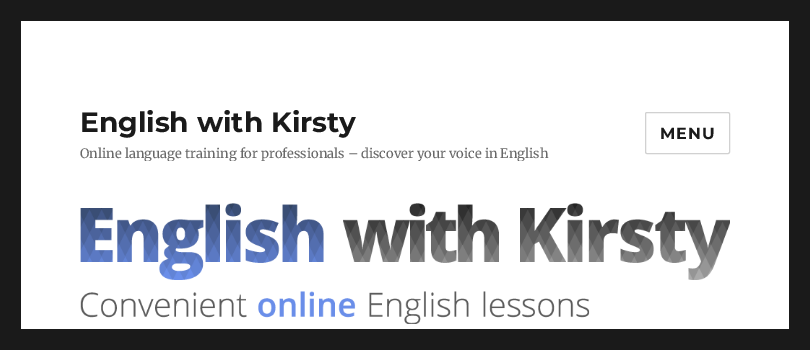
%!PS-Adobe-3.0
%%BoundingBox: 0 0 810 350
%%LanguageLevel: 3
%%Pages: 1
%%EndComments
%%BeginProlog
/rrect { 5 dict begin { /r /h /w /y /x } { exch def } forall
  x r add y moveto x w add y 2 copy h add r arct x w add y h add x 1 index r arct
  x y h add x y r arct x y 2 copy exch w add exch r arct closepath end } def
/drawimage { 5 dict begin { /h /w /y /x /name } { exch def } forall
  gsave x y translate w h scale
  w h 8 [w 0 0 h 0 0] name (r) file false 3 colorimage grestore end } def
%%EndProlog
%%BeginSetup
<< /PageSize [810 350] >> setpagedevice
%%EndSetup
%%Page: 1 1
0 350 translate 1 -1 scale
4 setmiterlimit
0.102 setgray
0 0 810 350 rectfill
1 setgray
21 21 768 308 rectfill
0.82 setgray
645.5 112.5 84 41 1.5 rrect stroke
(images/1.raw) 80 203 650 121 drawimage
/Montserrat-Bold [28 0 0 -28 0 0] selectfont
0.102 setgray
80 132 moveto (English with Kirsty) show
gsave
80 105 469 56 rectclip
/Merriweather-Regular [13 0 0 -13 0 0] selectfont
0.408 setgray
80 158 moveto (Online language training for professionals – discover your voice in English) show
grestore
/Montserrat-Bold [16 0 0 -16 0 0] selectfont
660 139 moveto 1 0 (MENU) ashow
showpage
%%EOF
